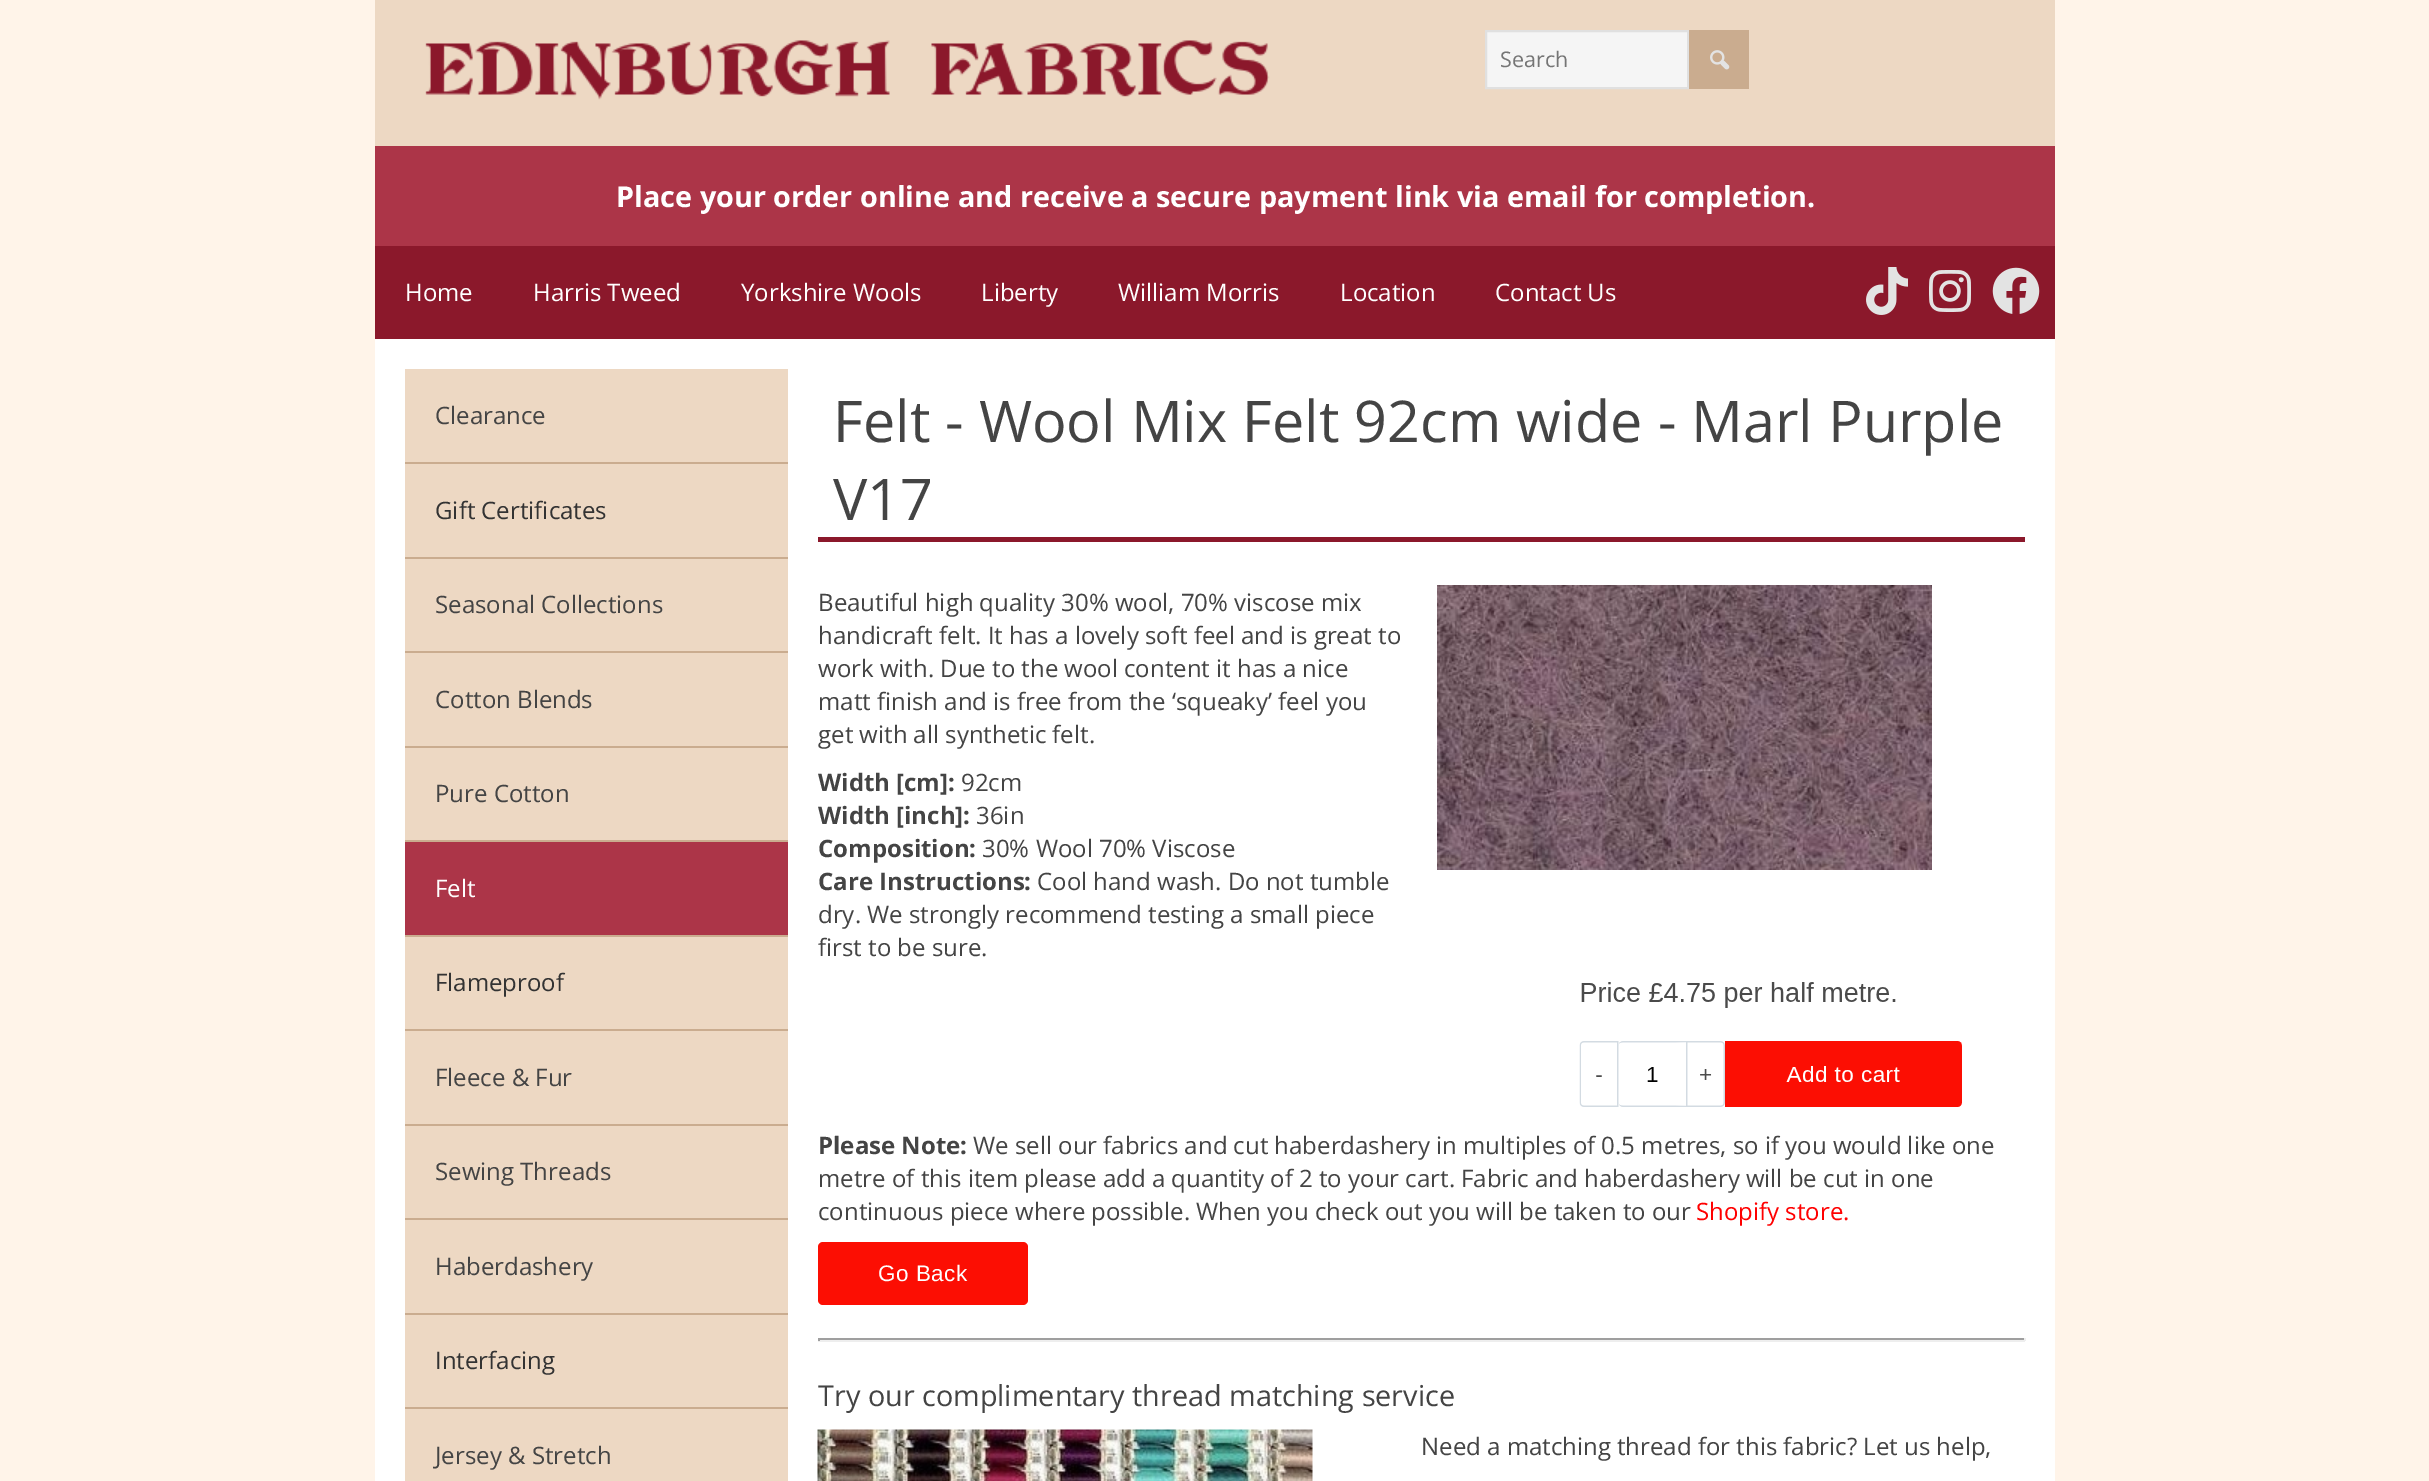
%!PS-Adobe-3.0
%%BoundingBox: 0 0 2429 1481
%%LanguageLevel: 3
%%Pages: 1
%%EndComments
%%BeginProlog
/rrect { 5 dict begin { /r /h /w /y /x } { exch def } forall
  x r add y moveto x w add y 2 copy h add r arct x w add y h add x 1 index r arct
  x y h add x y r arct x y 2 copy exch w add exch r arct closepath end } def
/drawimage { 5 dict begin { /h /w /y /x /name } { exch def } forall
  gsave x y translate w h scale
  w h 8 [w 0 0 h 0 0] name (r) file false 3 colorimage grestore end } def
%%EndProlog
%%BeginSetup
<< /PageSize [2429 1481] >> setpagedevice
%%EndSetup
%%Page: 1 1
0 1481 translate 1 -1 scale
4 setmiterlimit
1 0.957 0.914 setrgbcolor
0 0 2429 1481 rectfill
0.929 0.847 0.765 setrgbcolor
375 0 1680 146 rectfill
(images/1.raw) 425 40 845 60 drawimage
0.961 setgray
newpath 1486 31 moveto 1688 31 lineto 1688 88 lineto 1486 88 lineto closepath gsave fill grestore
0.878 setgray
2 setlinewidth
stroke
0.792 0.675 0.561 setrgbcolor
1689 30 60 59 rectfill
(images/2.raw) 1710 50 20 20 drawimage
0.675 0.208 0.282 setrgbcolor
375 146 1680 100 rectfill
0.545 0.094 0.169 setrgbcolor
375 246 1680 93 rectfill
(images/3.raw) 1866 267 42 48 drawimage
(images/4.raw) 1929 270 42 42 drawimage
(images/5.raw) 1992 267 48 47 drawimage
1 setgray
375 339 1680 1142 rectfill
0.929 0.847 0.765 setrgbcolor
405 369 383 1112 rectfill
0.792 0.675 0.561 setrgbcolor
405 462 383 2 rectfill
405 557 383 2 rectfill
405 651 383 2 rectfill
405 746 383 2 rectfill
405 840 383 2 rectfill
0.675 0.208 0.282 setrgbcolor
405 842 383 93 rectfill
0.792 0.675 0.561 setrgbcolor
405 935 383 2 rectfill
405 1029 383 2 rectfill
405 1124 383 2 rectfill
405 1218 383 2 rectfill
405 1313 383 2 rectfill
405 1407 383 2 rectfill
0.545 0.094 0.169 setrgbcolor
818 537 1207 5 rectfill
(images/6.raw) 1437 585 495 285 drawimage
(images/7.raw) 1579 982 383 125 drawimage
0.988 0.055 0.012 setrgbcolor
818 1242 210 63 5 rrect fill
0.624 setgray
818 1338 1207 2 rectfill
0.933 setgray
2024 1338 2 3 rectfill
818 1340 1207 2 rectfill
0.624 setgray
818 1338 2 3 rectfill
(images/8.raw) 817 1429 496 52 drawimage
/OpenSans-Regular [21.5 0 0 -21.5 0 0] selectfont
0.459 setgray
1500 67 moveto (Search) show
/OpenSans-Bold [28.8 0 0 -28.8 0 0] selectfont
1 setgray
616 207 moveto (Place your order online and receive a secure payment link via email for completion.) show
/OpenSans-Regular [24 0 0 -24 0 0] selectfont
405 301 moveto (Home) show
533 301 moveto (Harris Tweed) show
741 301 moveto (Yorkshire Wools) show
981 301 moveto (Liberty) show
1118 301 moveto (William Morris) show
1340 301 moveto (Location) show
1495 301 moveto (Contact Us) show
0.267 setgray
435 424 moveto (Clearance) show
0.2 setgray
435 519 moveto (Gift Certificates) show
0.267 setgray
435 613 moveto (Seasonal Collections) show
435 708 moveto (Cotton Blends) show
435 802 moveto (Pure Cotton) show
1 setgray
435 897 moveto (Felt) show
0.2 setgray
435 991 moveto (Flameproof) show
0.267 setgray
435 1086 moveto (Fleece & Fur) show
435 1180 moveto (Sewing Threads) show
435 1275 moveto (Haberdashery) show
0.2 setgray
435 1369 moveto (Interfacing) show
0.267 setgray
435 1464 moveto (Jersey & Stretch) show
/OpenSans-Regular [57.6 0 0 -57.6 0 0] selectfont
833 442 moveto (Felt - Wool Mix Felt 92cm wide - Marl Purple) show
833 520 moveto (V17) show
/OpenSans-Regular [24 0 0 -24 0 0] selectfont
818 611 moveto (Beautiful high quality 30% wool, 70% viscose mix) show
818 644 moveto (handicraft felt. It has a lovely soft feel and is great to) show
818 677 moveto (work with. Due to the wool content it has a nice) show
818 710 moveto (matt finish and is free from the ‘squeaky’ feel you) show
818 743 moveto (get with all synthetic felt.) show
/OpenSans-Bold [24 0 0 -24 0 0] selectfont
818 791 moveto (Width [cm]:) show
/OpenSans-Regular [24 0 0 -24 0 0] selectfont
961 791 moveto (92cm) show
/OpenSans-Bold [24 0 0 -24 0 0] selectfont
818 824 moveto (Width [inch]:) show
/OpenSans-Regular [24 0 0 -24 0 0] selectfont
976 824 moveto (36in) show
/OpenSans-Bold [24 0 0 -24 0 0] selectfont
818 857 moveto (Composition:) show
/OpenSans-Regular [24 0 0 -24 0 0] selectfont
982 857 moveto (30% Wool 70% Viscose) show
/OpenSans-Bold [24 0 0 -24 0 0] selectfont
818 890 moveto (Care Instructions:) show
/OpenSans-Regular [24 0 0 -24 0 0] selectfont
1037 890 moveto (Cool hand wash. Do not tumble) show
818 923 moveto (dry. We strongly recommend testing a small piece) show
818 956 moveto (first to be sure.) show
/OpenSans-Bold [24 0 0 -24 0 0] selectfont
818 1154 moveto (Please Note:) show
/OpenSans-Regular [24 0 0 -24 0 0] selectfont
973 1154 moveto (We sell our fabrics and cut haberdashery in multiples of 0.5 metres, so if you would like one) show
818 1187 moveto (metre of this item please add a quantity of 2 to your cart. Fabric and haberdashery will be cut in one) show
818 1220 moveto (continuous piece where possible. When you check out you will be taken to our) show
1 0 0 setrgbcolor
1696 1220 moveto (Shopify store.) show
/LiberationSans-Regular [22.5 0 0 -22.5 0 0] selectfont
1 setgray
878 1281 moveto 0.5 0 (Go Back) ashow
/OpenSans-Regular [28.8 0 0 -28.8 0 0] selectfont
0.267 setgray
818 1406 moveto (Try our complimentary thread matching service) show
/OpenSans-Regular [24 0 0 -24 0 0] selectfont
1421 1455 moveto (Need a matching thread for this fabric? Let us help,) show
showpage
%%EOF
